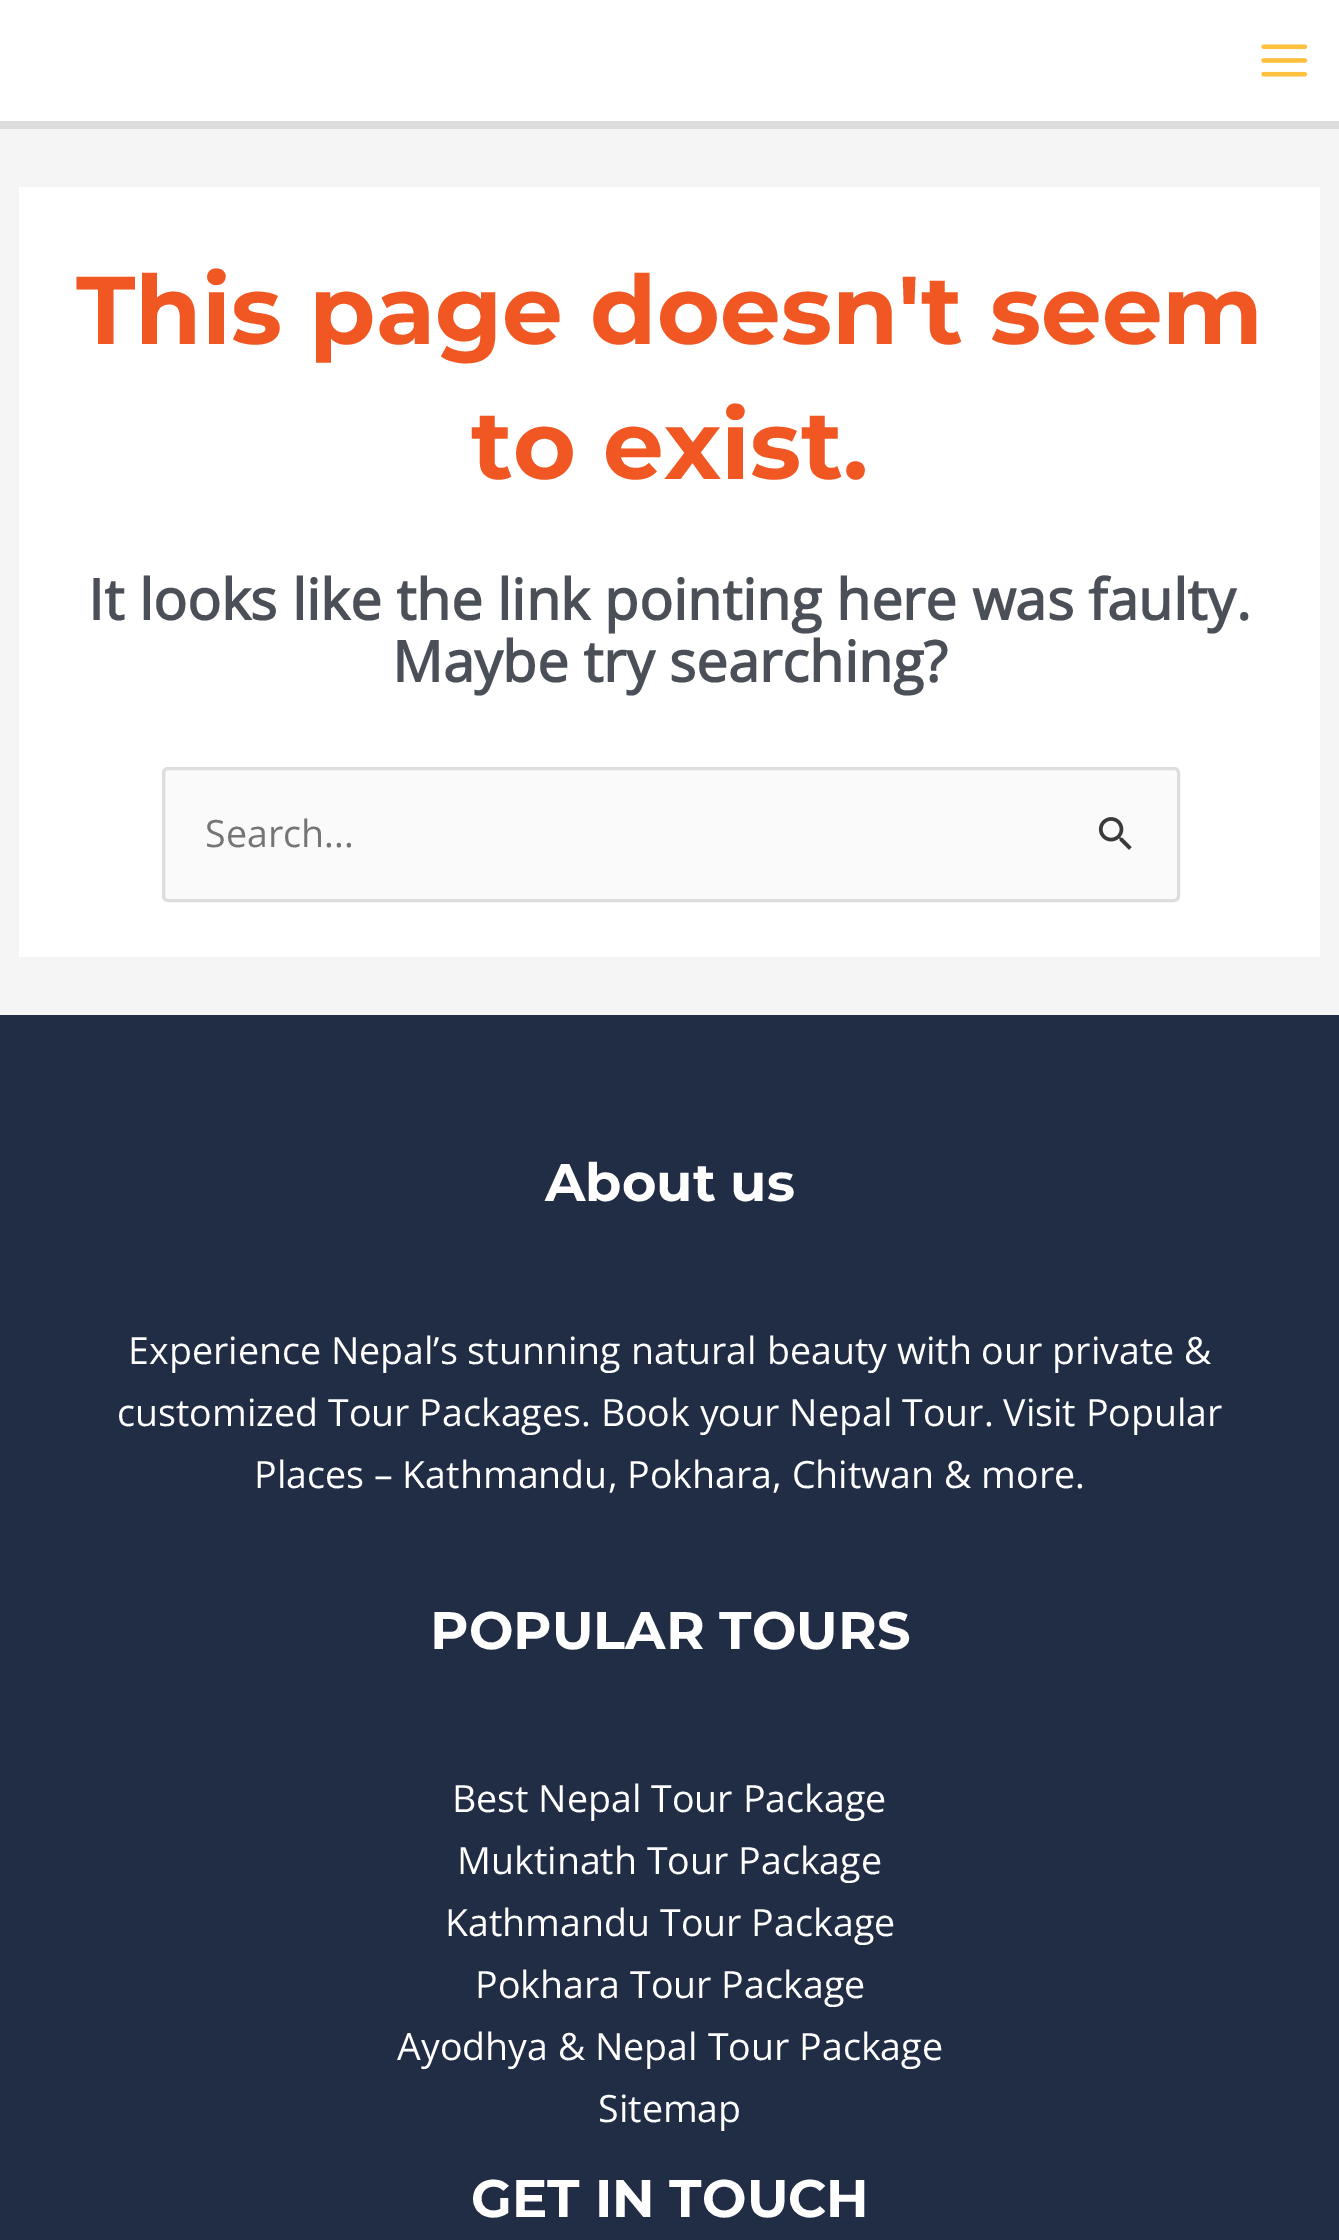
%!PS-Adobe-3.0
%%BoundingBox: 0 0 1339 2240
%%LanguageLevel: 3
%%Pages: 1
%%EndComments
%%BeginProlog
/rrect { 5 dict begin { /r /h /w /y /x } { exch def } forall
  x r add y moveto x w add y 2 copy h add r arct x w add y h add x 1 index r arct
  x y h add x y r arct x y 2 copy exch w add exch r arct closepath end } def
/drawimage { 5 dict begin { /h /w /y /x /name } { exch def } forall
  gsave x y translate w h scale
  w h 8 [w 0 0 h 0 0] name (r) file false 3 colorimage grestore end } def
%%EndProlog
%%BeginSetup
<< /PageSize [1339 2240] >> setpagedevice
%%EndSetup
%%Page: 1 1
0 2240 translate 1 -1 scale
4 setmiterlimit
0.961 setgray
0 0 1339 2240 rectfill
1 setgray
0 0 1339 121 rectfill
0.867 setgray
0 121 1339 8 rectfill
(images/1.raw) 1261 44 47 33 drawimage
1 setgray
19 187 1301 770 rectfill
0.98 setgray
163.5 768.5 1015 132 4.5 rrect gsave fill grestore
0.867 setgray
3 setlinewidth
stroke
(images/2.raw) 1098 817 34 33 drawimage
0.129 0.176 0.271 setrgbcolor
0 1015 1339 1225 rectfill
/Montserrat-Thin [96.25 0 0 -96.25 0 0] selectfont
0.945 0.341 0.133 setrgbcolor
76 344 moveto (This page doesn't seem) show
471 479 moveto (to exist.) show
/OpenSans-Bold [56.4 0 0 -56.4 0 0] selectfont
0.294 0.31 0.345 setrgbcolor
88 620 moveto (It looks like the link pointing here was faulty.) show
392 682 moveto (Maybe try searching?) show
/OpenSans-Regular [37.6 0 0 -37.6 0 0] selectfont
0.459 setgray
205 847 moveto (Search...) show
/Montserrat-Thin [52.75 0 0 -52.75 0 0] selectfont
1 setgray
545 1201 moveto (About us) show
/OpenSans-Regular [37.6 0 0 -37.6 0 0] selectfont
128 1364 moveto (Experience Nepal’s stunning natural beauty with our private &) show
117 1426 moveto (customized Tour Packages. Book your Nepal Tour. Visit Popular) show
254 1488 moveto (Places – Kathmandu, Pokhara, Chitwan & more.) show
/Montserrat-Thin [52.75 0 0 -52.75 0 0] selectfont
430 1649 moveto (POPULAR TOURS) show
/OpenSans-Regular [37.6 0 0 -37.6 0 0] selectfont
452 1812 moveto (Best Nepal Tour Package) show
457 1874 moveto (Muktinath Tour Package) show
445 1936 moveto (Kathmandu Tour Package) show
475 1998 moveto (Pokhara Tour Package) show
397 2060 moveto (Ayodhya & Nepal Tour Package) show
598 2122 moveto (Sitemap) show
/Montserrat-Thin [52.75 0 0 -52.75 0 0] selectfont
471 2217 moveto (GET IN TOUCH) show
showpage
%%EOF
